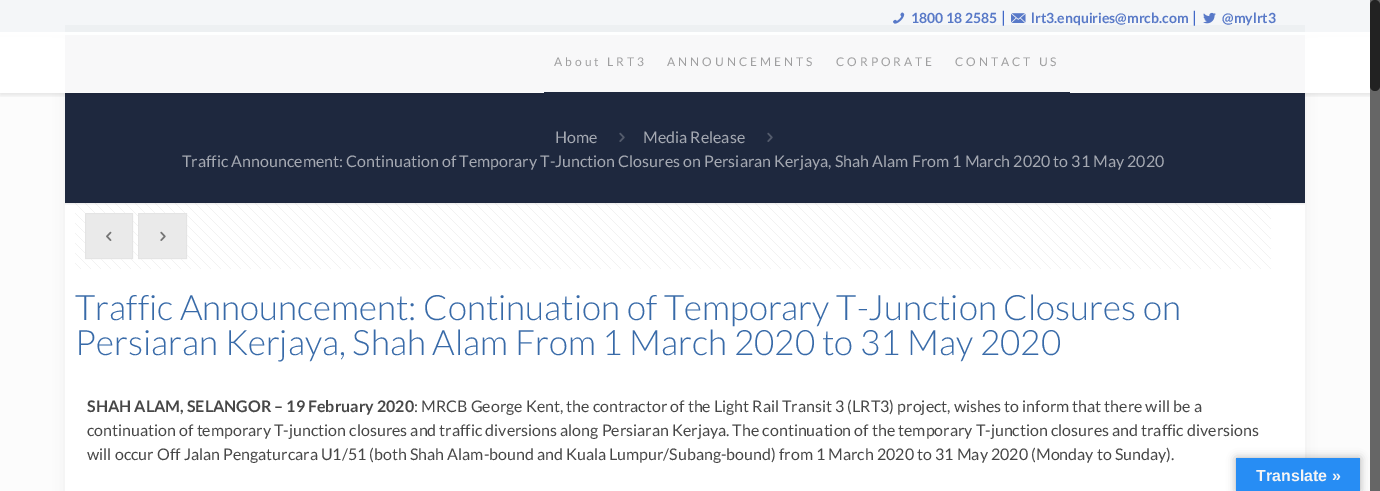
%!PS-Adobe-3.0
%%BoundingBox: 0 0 1380 491
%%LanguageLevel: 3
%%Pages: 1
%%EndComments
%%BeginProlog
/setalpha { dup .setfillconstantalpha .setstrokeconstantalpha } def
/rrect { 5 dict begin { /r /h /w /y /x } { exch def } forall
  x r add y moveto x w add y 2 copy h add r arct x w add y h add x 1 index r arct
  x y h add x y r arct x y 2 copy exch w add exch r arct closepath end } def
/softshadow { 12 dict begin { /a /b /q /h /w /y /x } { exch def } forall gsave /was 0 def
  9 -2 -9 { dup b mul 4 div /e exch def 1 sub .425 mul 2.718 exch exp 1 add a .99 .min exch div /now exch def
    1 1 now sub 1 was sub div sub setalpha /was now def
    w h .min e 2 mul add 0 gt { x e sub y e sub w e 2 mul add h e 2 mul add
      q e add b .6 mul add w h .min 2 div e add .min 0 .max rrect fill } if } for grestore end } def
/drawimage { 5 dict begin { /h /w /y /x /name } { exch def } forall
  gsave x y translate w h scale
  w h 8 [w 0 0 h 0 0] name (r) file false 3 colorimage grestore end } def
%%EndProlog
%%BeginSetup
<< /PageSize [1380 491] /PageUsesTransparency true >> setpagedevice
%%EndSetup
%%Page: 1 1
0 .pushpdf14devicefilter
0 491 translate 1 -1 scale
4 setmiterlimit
0.988 setgray
0 0 1380 491 rectfill
0 setgray
65 25 1240 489 0 7.5 0.06 softshadow
1 setgray
65 203 1240 288 rectfill
0.118 0.157 0.243 setrgbcolor
65 25 1240 178 rectfill
gsave
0 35 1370 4 rectclip
0 setgray
0 2 1380 35 0 2.5 0.1 softshadow
grestore
0.97 setalpha
0.957 0.965 0.973 setrgbcolor
0 0 1370 35 rectfill
1 setalpha
(images/1.raw) 893 12 12 12 drawimage
(images/2.raw) 1011 13 15 10 drawimage
(images/3.raw) 1203 12 13 12 drawimage
gsave
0 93 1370 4 rectclip
0 setgray
0 34 1380 61 0 2.5 0.1 softshadow
grestore
0.97 setalpha
1 setgray
0 32 1370 61 rectfill
0.39 setalpha
65 92 1240 1 rectfill
1 setalpha
0.118 0.157 0.243 setrgbcolor
544 92 526 4 rectfill
(images/4.raw) 619 132 6 10 drawimage
(images/4.raw) 767 132 6 10 drawimage
(images/6.raw) 75 203 1196 66 drawimage
(images/5.raw) 65 203 1240 2 drawimage
0.969 setgray
newpath 85.5 213.5 moveto 132.5 213.5 lineto 132.5 258.5 lineto 85.5 258.5 lineto closepath gsave fill grestore
0.941 setgray
stroke
0.05 setalpha
0 setgray
85 213 48 46 rectfill
1 setalpha
(images/7.raw) 106 231 6 10 drawimage
0.969 setgray
newpath 138.5 213.5 moveto 186.5 213.5 lineto 186.5 258.5 lineto 138.5 258.5 lineto closepath gsave fill grestore
0.941 setgray
stroke
0.05 setalpha
0 setgray
138 213 49 46 rectfill
1 setalpha
(images/8.raw) 160 231 6 10 drawimage
0.4 setgray
1370 0 10 491 rectfill
0.133 setgray
1370 0 10 91 5 rrect fill
0 setgray
1236 458 124 33 0 4.5 0.3 softshadow
0.153 0.553 0.957 setrgbcolor
1236 458 124 33 rectfill
/Lato-Bold [14 0 0 -14 0 0] selectfont
0.345 0.475 0.78 setrgbcolor
911 23 moveto (1800 18 2585) show
/Lato-Regular [16 0 0 -16 0 0] selectfont
0.255 0.408 0.78 setrgbcolor
1001 23 moveto (|) show
/Lato-Bold [14 0 0 -14 0 0] selectfont
0.345 0.475 0.78 setrgbcolor
1031 23 moveto (lrt3.enquiries@mrcb.com) show
/Lato-Regular [16 0 0 -16 0 0] selectfont
0.255 0.408 0.78 setrgbcolor
1192 23 moveto (|) show
/Lato-Bold [14 0 0 -14 0 0] selectfont
0.345 0.475 0.78 setrgbcolor
1222 23 moveto (@mylrt3) show
/Lato-Regular [12 0 0 -12 0 0] selectfont
0.624 0.624 0.627 setrgbcolor
554 66 moveto 3 0 (About LRT3) ashow
667 66 moveto 3 0 (ANNOUNCEMENTS) ashow
836 66 moveto 3 0 (CORPORATE) ashow
955 66 moveto 3 0 (CONTACT US) ashow
/Lato-Regular [16 0 0 -16 0 0] selectfont
0.647 0.663 0.698 setrgbcolor
555 143 moveto (Home) show
643 143 moveto (Media Release) show
182 167 moveto (Traffic Announcement: Continuation of Temporary T-Junction Closures on Persiaran Kerjaya, Shah Alam From 1 March 2020 to 31 May 2020) show
/Lato-Light [35 0 0 -35 0 0] selectfont
0.22 0.416 0.659 setrgbcolor
75 320 moveto (Traffic Announcement: Continuation of Temporary T-Junction Closures on) show
75 355 moveto (Persiaran Kerjaya, Shah Alam From 1 March 2020 to 31 May 2020) show
/Lato-Bold [16 0 0 -16 0 0] selectfont
0.278 setgray
87 412 moveto (SHAH ALAM, SELANGOR – 19 February 2020) show
/Lato-Regular [16 0 0 -16 0 0] selectfont
414 412 moveto (: MRCB George Kent, the contractor of the Light Rail Transit 3 \(LRT3\) project, wishes to inform that there will be a) show
87 436 moveto (continuation of temporary T-junction closures and traffic diversions along Persiaran Kerjaya. The continuation of the temporary T-junction closures and traffic diversions) show
87 460 moveto (will occur Off Jalan Pengaturcara U1/51 \(both Shah Alam-bound and Kuala Lumpur/Subang-bound\) from 1 March 2020 to 31 May 2020 \(Monday to Sunday\).) show
/LiberationSans-Bold [16 0 0 -16 0 0] selectfont
0.957 setgray
1256 481 moveto (Translate ») show
.poppdf14devicefilter showpage
%%EOF
